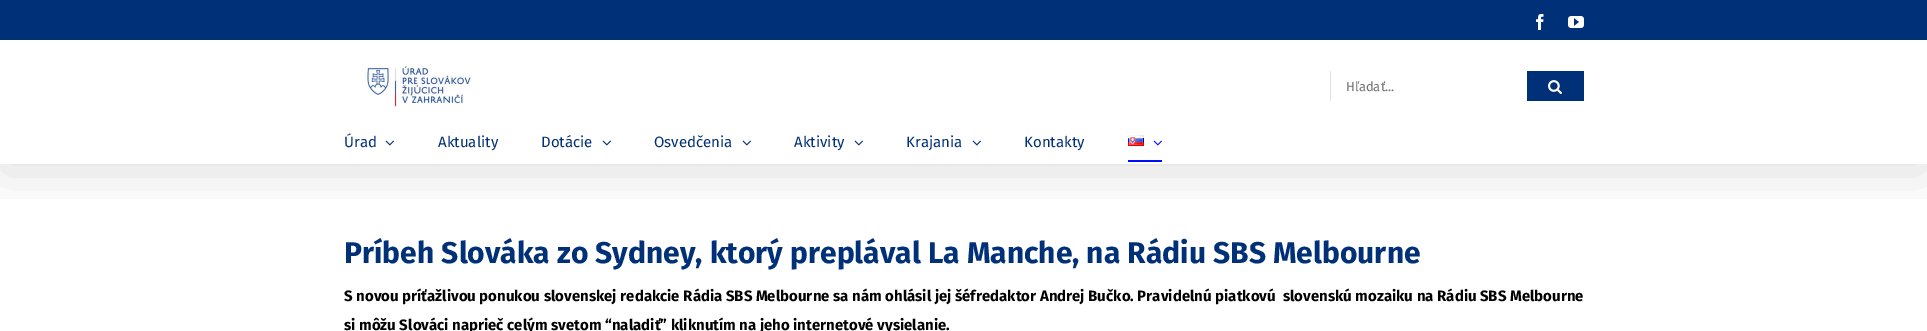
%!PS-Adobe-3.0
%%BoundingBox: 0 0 1927 331
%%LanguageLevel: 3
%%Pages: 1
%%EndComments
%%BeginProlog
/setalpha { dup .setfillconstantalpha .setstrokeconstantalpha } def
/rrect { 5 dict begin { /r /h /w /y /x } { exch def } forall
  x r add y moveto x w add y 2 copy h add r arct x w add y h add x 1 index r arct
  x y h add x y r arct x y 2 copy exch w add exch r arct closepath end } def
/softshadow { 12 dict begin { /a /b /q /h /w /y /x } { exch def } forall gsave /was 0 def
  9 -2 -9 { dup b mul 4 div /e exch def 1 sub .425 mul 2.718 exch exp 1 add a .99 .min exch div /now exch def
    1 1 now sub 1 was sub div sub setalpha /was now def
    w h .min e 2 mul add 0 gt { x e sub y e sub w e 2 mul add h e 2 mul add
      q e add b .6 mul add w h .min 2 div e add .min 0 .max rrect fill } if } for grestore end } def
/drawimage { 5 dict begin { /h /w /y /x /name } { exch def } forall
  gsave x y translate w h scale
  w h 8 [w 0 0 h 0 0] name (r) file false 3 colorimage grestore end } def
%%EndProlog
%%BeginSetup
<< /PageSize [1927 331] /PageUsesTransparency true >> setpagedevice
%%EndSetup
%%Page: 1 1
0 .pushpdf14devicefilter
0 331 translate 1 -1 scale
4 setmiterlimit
1 setgray
0 0 1927 331 rectfill
gsave
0 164 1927 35 rectclip
0 setgray
2 12 1923 160 0 25 0.14 softshadow
grestore
0 0.188 0.471 setrgbcolor
0 0 1927 40 rectfill
(images/1.raw) 1536 14 8 16 drawimage
(images/2.raw) 1568 16 16 12 drawimage
(images/3.raw) 364 63 108 44 drawimage
0.886 setgray
1330 71 1 30 rectfill
0 0.188 0.471 setrgbcolor
1527 71 57 30 rectfill
(images/4.raw) 1548 80 14 14 drawimage
(images/5.raw) 385 140 9 6 drawimage
(images/5.raw) 602 140 9 6 drawimage
(images/5.raw) 742 140 9 6 drawimage
(images/5.raw) 854 140 9 6 drawimage
(images/5.raw) 972 140 9 6 drawimage
(images/6.raw) 1128 135 16 11 drawimage
(images/7.raw) 1153 140 9 6 drawimage
0 0.063 1 setrgbcolor
1128 160 34 2 rectfill
/FiraSans-Regular [13 0 0 -13 0 0] selectfont
0.439 setgray
1346 91 moveto (Hľadať...) show
/FiraSans-Regular [15 0 0 -15 0 0] selectfont
0 0.188 0.471 setrgbcolor
344 147 moveto (Úrad) show
438 147 moveto (Aktuality) show
541 147 moveto (Dotácie) show
654 147 moveto (Osvedčenia) show
794 147 moveto (Aktivity) show
906 147 moveto (Krajania) show
1024 147 moveto (Kontakty) show
/FiraSans-Bold [30 0 0 -30 0 0] selectfont
344 263 moveto (Príbeh Slováka zo Sydney, ktorý preplával La Manche, na Rádiu SBS Melbourne) show
/FiraSans-Bold [15 0 0 -15 0 0] selectfont
0 setgray
344 301 moveto (S novou príťažlivou ponukou slovenskej redakcie Rádia SBS Melbourne sa nám ohlásil jej šéfredaktor Andrej Bučko. Pravidelnú piatkovú  slovenskú mozaiku na Rádiu SBS Melbourne) show
344 330 moveto (si môžu Slováci naprieč celým svetom “naladiť” kliknutím na jeho internetové vysielanie.) show
.poppdf14devicefilter showpage
%%EOF
